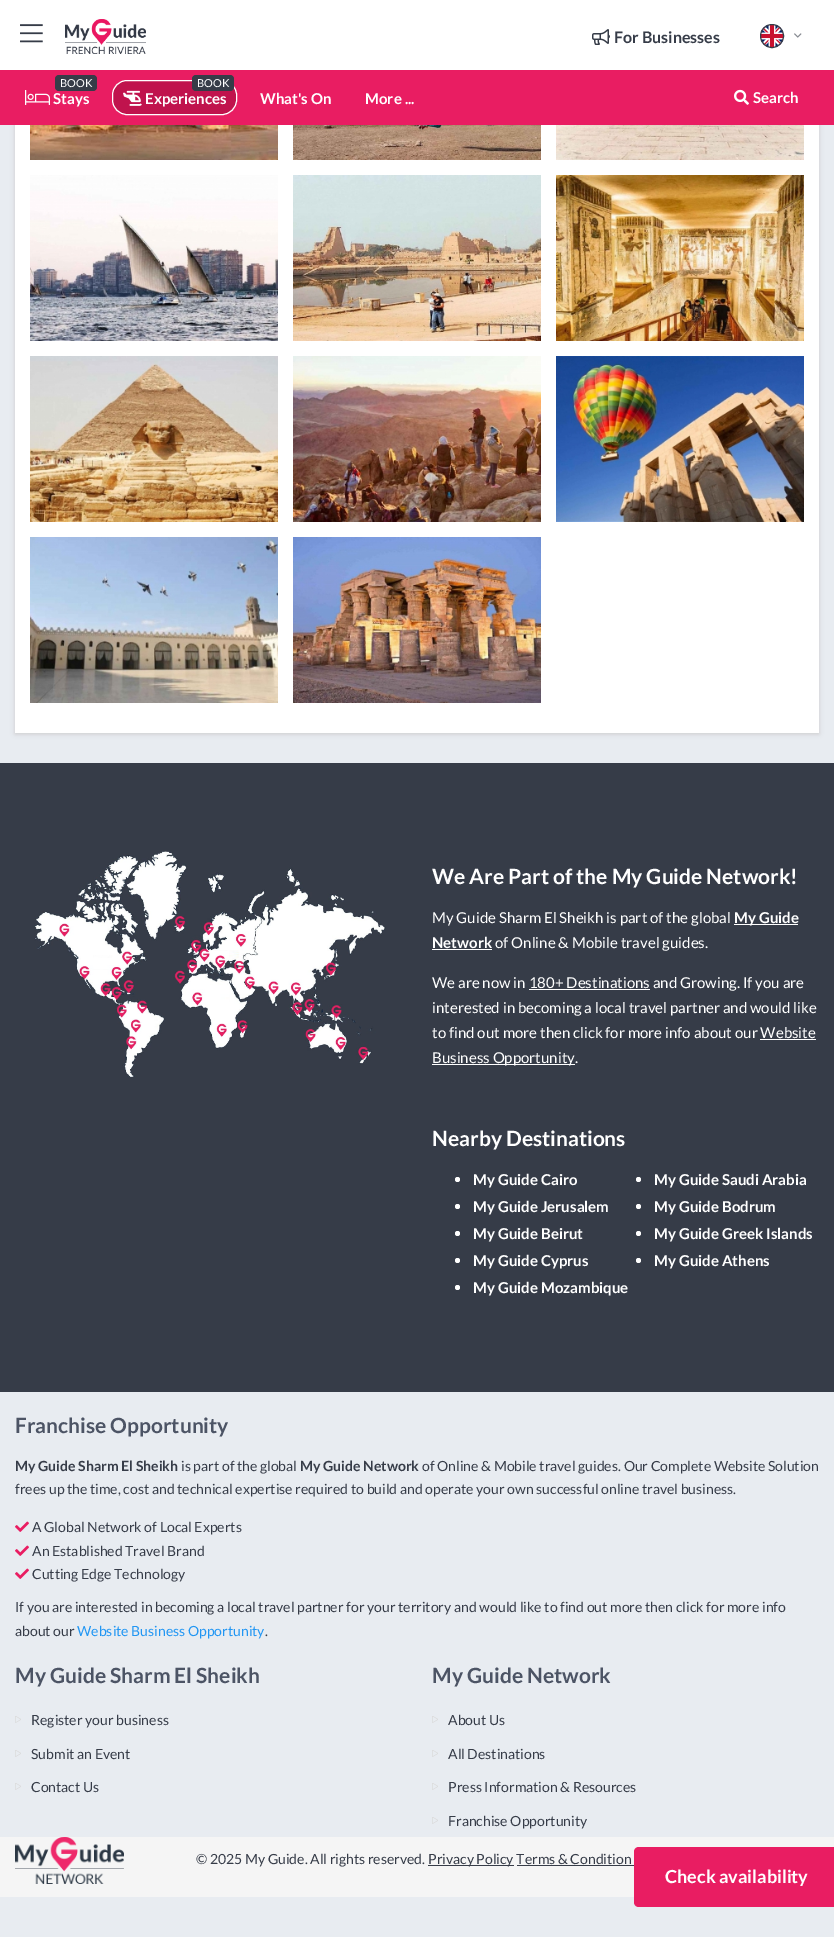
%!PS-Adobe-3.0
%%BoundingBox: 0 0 834 1937
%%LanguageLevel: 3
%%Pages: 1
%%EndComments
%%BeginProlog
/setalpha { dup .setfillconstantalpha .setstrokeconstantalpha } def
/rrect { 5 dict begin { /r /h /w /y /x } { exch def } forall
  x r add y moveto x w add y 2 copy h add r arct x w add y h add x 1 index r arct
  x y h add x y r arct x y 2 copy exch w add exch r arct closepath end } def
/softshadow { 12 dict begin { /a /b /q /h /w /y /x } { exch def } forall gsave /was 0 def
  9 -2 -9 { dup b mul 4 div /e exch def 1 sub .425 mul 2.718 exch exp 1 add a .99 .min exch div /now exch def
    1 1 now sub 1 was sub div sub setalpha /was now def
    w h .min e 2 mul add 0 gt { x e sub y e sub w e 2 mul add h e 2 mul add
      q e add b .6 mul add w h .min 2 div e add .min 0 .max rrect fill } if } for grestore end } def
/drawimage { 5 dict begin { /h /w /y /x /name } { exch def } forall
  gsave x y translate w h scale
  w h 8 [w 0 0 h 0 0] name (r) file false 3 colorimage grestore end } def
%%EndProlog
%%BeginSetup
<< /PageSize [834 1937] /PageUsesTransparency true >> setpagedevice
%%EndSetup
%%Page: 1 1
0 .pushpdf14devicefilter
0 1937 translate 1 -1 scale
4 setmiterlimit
0.91 0.925 0.945 setrgbcolor
0 0 834 1937 rectfill
0.8 setgray
15 -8 804 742 0 2.5 1 softshadow
1 setgray
0 0 834 70 rectfill
(images/1.raw) 20 24 23 19 drawimage
(images/2.raw) 65 19 81 35 drawimage
(images/3.raw) 592 29 18 16 drawimage
(images/4.raw) 761 25 22 22 drawimage
0.212 0.235 0.282 setrgbcolor
newpath 772 36 11.5 0 360 arc closepath stroke
(images/5.raw) 794 33 8 5 drawimage
0.914 0.114 0.384 setrgbcolor
0 70 834 55 rectfill
0.212 0.235 0.282 setrgbcolor
55 75 42 16 4 rrect fill
(images/6.raw) 25 90 25 15 drawimage
0.753 0.075 0.302 setrgbcolor
112.5 80.5 124 34 14.5 rrect gsave fill grestore
1 setgray
stroke
0.212 0.235 0.282 setrgbcolor
192 75 42 16 4 rrect fill
(images/7.raw) 123 90 19 16 drawimage
(images/8.raw) 734 89 15 16 drawimage
0 763 834 629 rectfill
(images/9.raw) 34 851 352 226 drawimage
1 setgray
734 924 64 1 rectfill
432 949 60 1 rectfill
529 989 121 1 rectfill
760 1039 56 1 rectfill
432 1064 143 1 rectfill
newpath 457.5 1179.5 2.5 0 360 arc closepath fill
newpath 638.5 1179.5 2.5 0 360 arc closepath fill
newpath 457.5 1206.5 2.5 0 360 arc closepath fill
newpath 638.5 1206.5 2.5 0 360 arc closepath fill
newpath 457.5 1233.5 2.5 0 360 arc closepath fill
newpath 638.5 1233.5 2.5 0 360 arc closepath fill
newpath 457.5 1260.5 2.5 0 360 arc closepath fill
newpath 638.5 1260.5 2.5 0 360 arc closepath fill
newpath 457.5 1287.5 2.5 0 360 arc closepath fill
(images/10.raw) 15 1521 14 11 drawimage
(images/10.raw) 15 1545 14 11 drawimage
(images/10.raw) 15 1568 14 11 drawimage
(images/11.raw) 15 1716 6 7 drawimage
(images/11.raw) 15 1750 6 7 drawimage
(images/11.raw) 15 1783 6 7 drawimage
(images/11.raw) 432 1716 6 7 drawimage
(images/11.raw) 432 1750 6 7 drawimage
(images/11.raw) 432 1783 6 7 drawimage
(images/11.raw) 432 1817 6 7 drawimage
0.961 setgray
0 1837 834 60 rectfill
(images/12.raw) 15 1837 109 47 drawimage
0.212 0.235 0.282 setrgbcolor
428 1865 86 1 rectfill
517 1865 121 1 rectfill
1 setgray
15 125 804 608 rectfill
(images/13.raw) 30 125 248 35 drawimage
(images/14.raw) 293 125 248 35 drawimage
(images/15.raw) 556 125 248 35 drawimage
(images/16.raw) 30 175 248 166 drawimage
(images/17.raw) 293 175 248 166 drawimage
(images/18.raw) 556 175 248 166 drawimage
(images/19.raw) 30 356 248 166 drawimage
(images/20.raw) 293 356 248 166 drawimage
(images/21.raw) 556 356 248 166 drawimage
(images/22.raw) 30 537 248 166 drawimage
(images/23.raw) 293 537 248 166 drawimage
0.914 0.114 0.384 setrgbcolor
newpath 639 1847 moveto 834 1847 lineto 834 1907 lineto 639 1907 lineto 636 1907 634 1905 634 1902 curveto 634 1852 lineto 634 1849 636 1847 639 1847 curveto closepath fill
/Lato-Bold [16 0 0 -16 0 0] selectfont
0.212 0.235 0.282 setrgbcolor
614 43 moveto (For Businesses) show
/Lato-Regular [11 0 0 -11 0 0] selectfont
1 setgray
60 87 moveto (BOOK) show
/Lato-Bold [15 0 0 -15 0 0] selectfont
53 104 moveto (Stays) show
/Lato-Regular [11 0 0 -11 0 0] selectfont
197 87 moveto (BOOK) show
/Lato-Bold [15 0 0 -15 0 0] selectfont
145 104 moveto (Experiences) show
260 104 moveto (What's On) show
365 104 moveto (More ...) show
753 103 moveto (Search) show
/Lato-Bold [21 0 0 -21 0 0] selectfont
432 884 moveto (We Are Part of the My Guide Network!) show
/Lato-Regular [15 0 0 -15 0 0] selectfont
432 923 moveto (My Guide Sharm El Sheikh is part of the global) show
/Lato-Bold [15 0 0 -15 0 0] selectfont
734 923 moveto (My Guide) show
432 948 moveto (Network) show
/Lato-Regular [15 0 0 -15 0 0] selectfont
495 948 moveto (of Online & Mobile travel guides.) show
432 988 moveto (We are now in 180+ Destinations and Growing. If you are) show
432 1013 moveto (interested in becoming a local travel partner and would like) show
432 1038 moveto (to find out more then click for more info about our Website) show
432 1063 moveto (Business Opportunity.) show
/Lato-Bold [21 0 0 -21 0 0] selectfont
432 1146 moveto (Nearby Destinations) show
/Lato-Bold [15 0 0 -15 0 0] selectfont
473 1185 moveto (My Guide Cairo) show
654 1185 moveto (My Guide Saudi Arabia) show
473 1212 moveto (My Guide Jerusalem) show
654 1212 moveto (My Guide Bodrum) show
473 1239 moveto (My Guide Beirut) show
654 1239 moveto (My Guide Greek Islands) show
473 1266 moveto (My Guide Cyprus) show
654 1266 moveto (My Guide Athens) show
473 1293 moveto (My Guide Mozambique) show
/Lato-Bold [21 0 0 -21 0 0] selectfont
0.298 0.329 0.396 setrgbcolor
15 1433 moveto (Franchise Opportunity) show
/Lato-Bold [14 0 0 -14 0 0] selectfont
0.212 0.235 0.282 setrgbcolor
15 1471 moveto (My Guide Sharm El Sheikh) show
/Lato-Regular [14 0 0 -14 0 0] selectfont
181 1471 moveto (is part of the global) show
/Lato-Bold [14 0 0 -14 0 0] selectfont
300 1471 moveto (My Guide Network) show
/Lato-Regular [14 0 0 -14 0 0] selectfont
422 1471 moveto (of Online & Mobile travel guides. Our Complete Website Solution) show
15 1494 moveto (frees up the time, cost and technical expertise required to build and operate your own successful online travel business.) show
32 1532 moveto (A Global Network of Local Experts) show
32 1556 moveto (An Established Travel Brand) show
32 1579 moveto (Cutting Edge Technology) show
15 1612 moveto (If you are interested in becoming a local travel partner for your territory and would like to find out more then click for more info) show
15 1636 moveto (about our) show
0.129 0.588 0.953 setrgbcolor
77 1636 moveto (Website Business Opportunity) show
0.212 0.235 0.282 setrgbcolor
265 1636 moveto (.) show
/Lato-Bold [21 0 0 -21 0 0] selectfont
0.298 0.329 0.396 setrgbcolor
15 1683 moveto (My Guide Sharm El Sheikh) show
/Lato-Regular [14 0 0 -14 0 0] selectfont
0.212 0.235 0.282 setrgbcolor
31 1725 moveto (Register your business) show
31 1759 moveto (Submit an Event) show
31 1792 moveto (Contact Us) show
/Lato-Bold [21 0 0 -21 0 0] selectfont
0.298 0.329 0.396 setrgbcolor
432 1683 moveto (My Guide Network) show
/Lato-Regular [14 0 0 -14 0 0] selectfont
0.212 0.235 0.282 setrgbcolor
448 1725 moveto (About Us) show
448 1759 moveto (All Destinations) show
448 1792 moveto (Press Information & Resources) show
448 1826 moveto (Franchise Opportunity) show
196 1864 moveto (© 2025 My Guide. All rights reserved.) show
428 1864 moveto (Privacy Policy Terms & Condition) show
/Lato-Bold [18 0 0 -18 0 0] selectfont
1 setgray
665 1883 moveto (Check availability) show
.poppdf14devicefilter showpage
%%EOF
